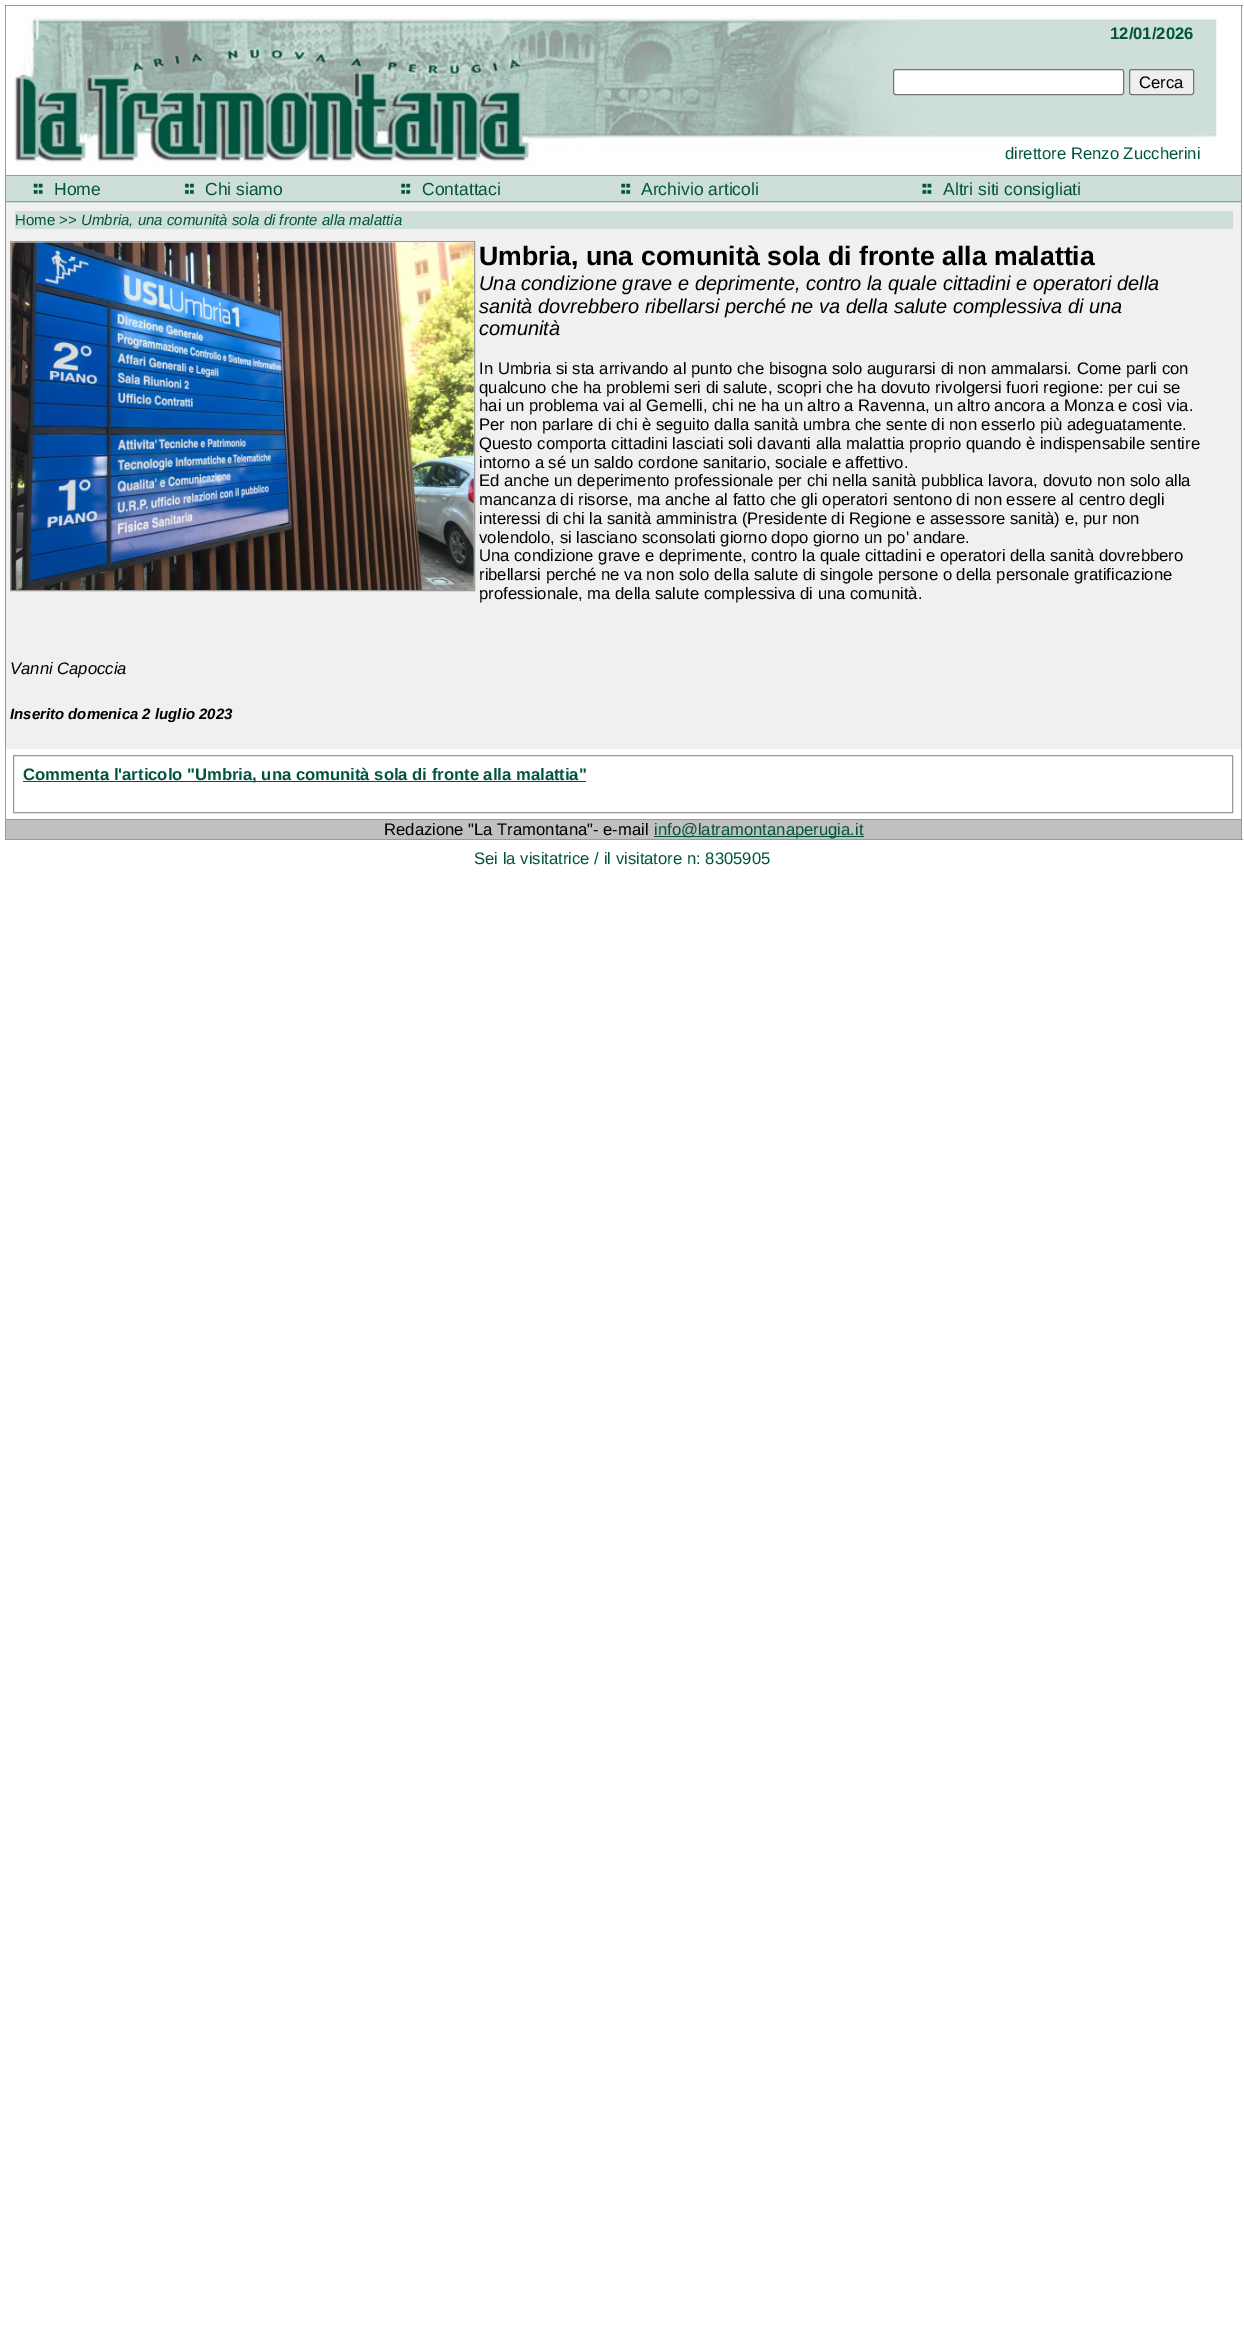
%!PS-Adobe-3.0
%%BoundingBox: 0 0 1244 2344
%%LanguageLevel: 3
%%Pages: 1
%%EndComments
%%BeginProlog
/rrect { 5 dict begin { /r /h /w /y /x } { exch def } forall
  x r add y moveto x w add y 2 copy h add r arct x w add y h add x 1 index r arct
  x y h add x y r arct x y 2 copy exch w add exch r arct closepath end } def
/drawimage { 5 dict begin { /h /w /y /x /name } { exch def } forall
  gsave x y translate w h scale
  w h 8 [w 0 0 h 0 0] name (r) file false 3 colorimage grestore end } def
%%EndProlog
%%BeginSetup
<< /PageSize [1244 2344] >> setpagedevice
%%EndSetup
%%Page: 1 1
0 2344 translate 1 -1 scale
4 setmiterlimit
1 setgray
0 0 1244 2344 rectfill
0.6 setgray
5 5 1238 1 rectfill
1241 5 1 835 rectfill
5 839 1238 1 rectfill
5 5 1 835 rectfill
(images/1.raw) 14 16 1212 150 drawimage
1 setgray
893.5 69.5 230 25 2 rrect gsave fill grestore
0.463 setgray
stroke
0.937 setgray
1129.5 69.5 64 25 2 rrect gsave fill grestore
0.463 setgray
stroke
0.808 0.871 0.847 setrgbcolor
6 176 1235 27 rectfill
0.6 setgray
6 175 1235 1 rectfill
6 201 1235 1 rectfill
(images/2.raw) 33 183 10 11 drawimage
(images/3.raw) 184 183 10 11 drawimage
(images/4.raw) 401 183 10 11 drawimage
(images/4.raw) 621 183 10 11 drawimage
(images/5.raw) 922 183 10 11 drawimage
0.941 setgray
6 203 1235 546 rectfill
0.808 0.871 0.847 setrgbcolor
15 211 1218 18 rectfill
0.6 setgray
10.5 241.5 464 349 rectstroke
(images/6.raw) 11 242 463 348 drawimage
13.5 755.5 1219 57 rectstroke
0 0.329 0.251 setrgbcolor
23 781 563 1 rectfill
0.753 setgray
6 820 1235 19 rectfill
0.6 setgray
6 819 1235 1 rectfill
0 0.329 0.251 setrgbcolor
654 836 210 1 rectfill
/LiberationSans-Bold [16.65 0 0 -16.65 0 0] selectfont
1110 39 moveto (12/01/2026) show
/LiberationSans-Regular [16.65 0 0 -16.65 0 0] selectfont
0 setgray
1139 88 moveto (Cerca) show
0 0.329 0.251 setrgbcolor
1005 159 moveto (direttore Renzo Zuccherini) show
/LiberationSans-Regular [17.5 0 0 -17.5 0 0] selectfont
54 195 moveto (Home) show
205 195 moveto (Chi siamo) show
422 195 moveto (Contattaci) show
641 195 moveto (Archivio articoli) show
943 195 moveto (Altri siti consigliati) show
/LiberationSans-Regular [15 0 0 -15 0 0] selectfont
15 225 moveto (Home >>) show
/LiberationSans-Italic [15 0 0 -15 0 0] selectfont
81 225 moveto (Umbria, una comunità sola di fronte alla malattia) show
/LiberationSans-Bold [26.7 0 0 -26.7 0 0] selectfont
0 setgray
479 265 moveto (Umbria, una comunità sola di fronte alla malattia) show
/LiberationSans-Italic [20 0 0 -20 0 0] selectfont
479 290 moveto (Una condizione grave e deprimente, contro la quale cittadini e operatori della) show
479 313 moveto (sanità dovrebbero ribellarsi perché ne va della salute complessiva di una) show
479 335 moveto (comunità) show
/LiberationSans-Regular [16.65 0 0 -16.65 0 0] selectfont
479 374 moveto (In Umbria si sta arrivando al punto che bisogna solo augurarsi di non ammalarsi. Come parli con) show
479 393 moveto (qualcuno che ha problemi seri di salute, scopri che ha dovuto rivolgersi fuori regione: per cui se) show
479 411 moveto (hai un problema vai al Gemelli, chi ne ha un altro a Ravenna, un altro ancora a Monza e così via.) show
479 430 moveto (Per non parlare di chi è seguito dalla sanità umbra che sente di non esserlo più adeguatamente.) show
479 449 moveto (Questo comporta cittadini lasciati soli davanti alla malattia proprio quando è indispensabile sentire) show
479 468 moveto (intorno a sé un saldo cordone sanitario, sociale e affettivo.) show
479 486 moveto (Ed anche un deperimento professionale per chi nella sanità pubblica lavora, dovuto non solo alla) show
479 505 moveto (mancanza di risorse, ma anche al fatto che gli operatori sentono di non essere al centro degli) show
479 524 moveto (interessi di chi la sanità amministra \(Presidente di Regione e assessore sanità\) e, pur non) show
479 543 moveto (volendolo, si lasciano sconsolati giorno dopo giorno un po' andare.) show
479 561 moveto (Una condizione grave e deprimente, contro la quale cittadini e operatori della sanità dovrebbero) show
479 580 moveto (ribellarsi perché ne va non solo della salute di singole persone o della personale gratificazione) show
479 599 moveto (professionale, ma della salute complessiva di una comunità.) show
/LiberationSans-Italic [16.65 0 0 -16.65 0 0] selectfont
10 674 moveto (Vanni Capoccia) show
/LiberationSans-BoldItalic [15 0 0 -15 0 0] selectfont
10 719 moveto (Inserito domenica 2 luglio 2023) show
/LiberationSans-Bold [16.65 0 0 -16.65 0 0] selectfont
0 0.329 0.251 setrgbcolor
23 780 moveto (Commenta l'articolo "Umbria, una comunità sola di fronte alla malattia") show
/LiberationSans-Regular [16.65 0 0 -16.65 0 0] selectfont
0 setgray
384 835 moveto (Redazione "La Tramontana"- e-mail) show
0 0.329 0.251 setrgbcolor
654 835 moveto (info@latramontanaperugia.it) show
474 864 moveto (Sei la visitatrice / il visitatore n: 8305905) show
showpage
%%EOF
